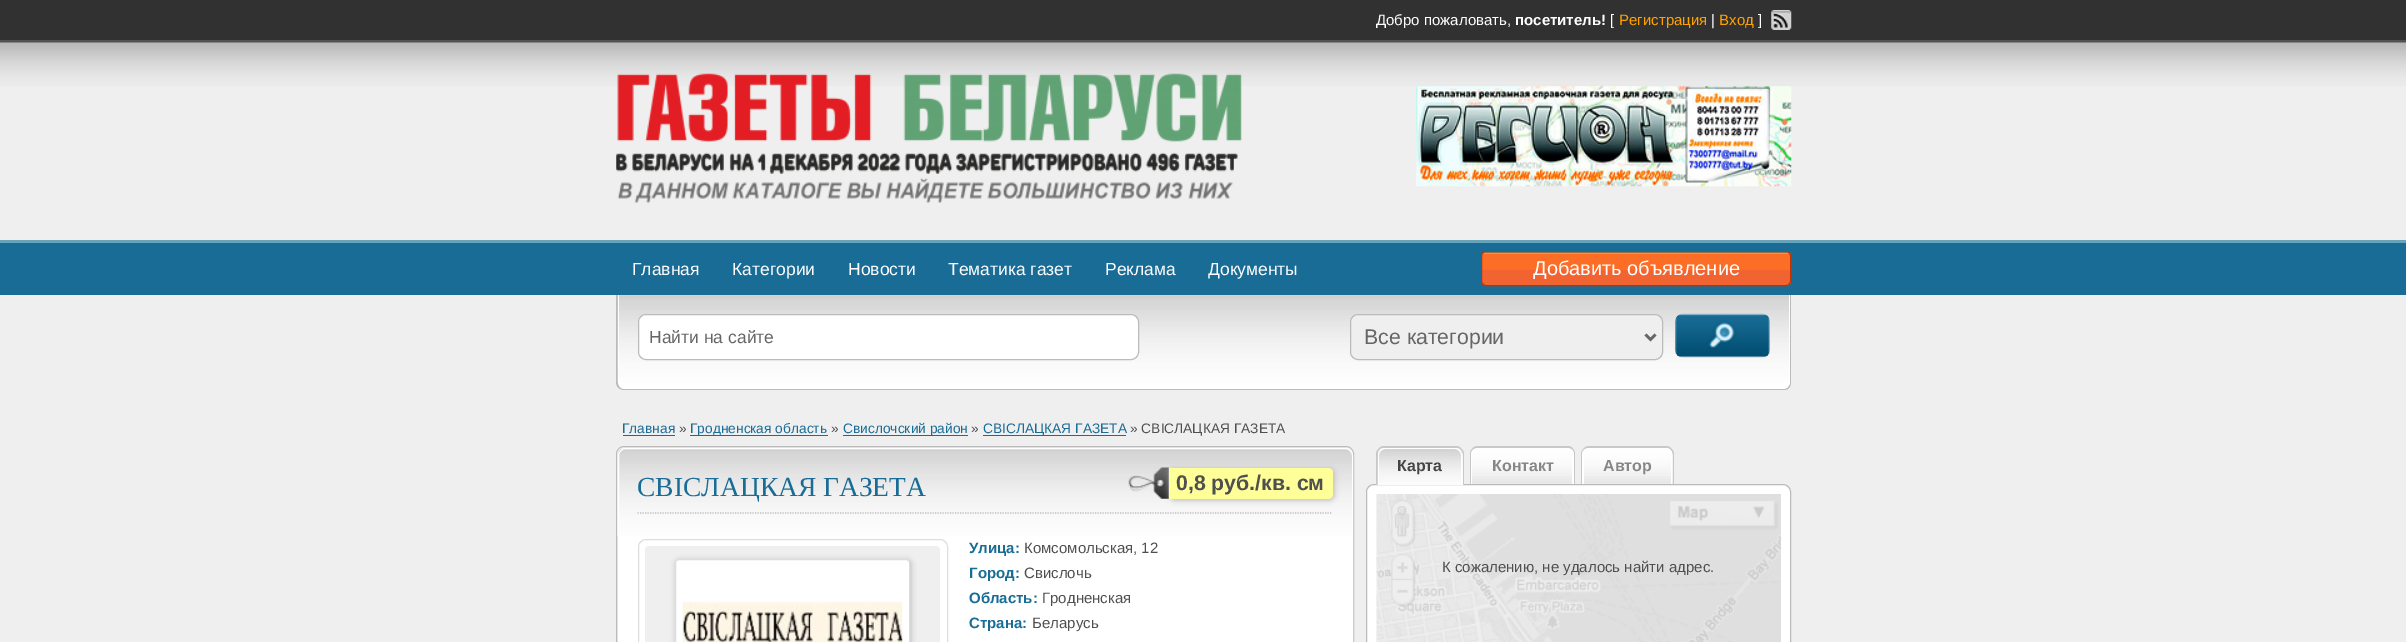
%!PS-Adobe-3.0
%%BoundingBox: 0 0 2406 642
%%LanguageLevel: 3
%%Pages: 1
%%EndComments
%%BeginProlog
/setalpha { dup .setfillconstantalpha .setstrokeconstantalpha } def
/rrect { 5 dict begin { /r /h /w /y /x } { exch def } forall
  x r add y moveto x w add y 2 copy h add r arct x w add y h add x 1 index r arct
  x y h add x y r arct x y 2 copy exch w add exch r arct closepath end } def
/softshadow { 12 dict begin { /a /b /q /h /w /y /x } { exch def } forall gsave /was 0 def
  9 -2 -9 { dup b mul 4 div /e exch def 1 sub .425 mul 2.718 exch exp 1 add a .99 .min exch div /now exch def
    1 1 now sub 1 was sub div sub setalpha /was now def
    w h .min e 2 mul add 0 gt { x e sub y e sub w e 2 mul add h e 2 mul add
      q e add b .6 mul add w h .min 2 div e add .min 0 .max rrect fill } if } for grestore end } def
/drawimage { 5 dict begin { /h /w /y /x /name } { exch def } forall
  gsave x y translate w h scale
  w h 8 [w 0 0 h 0 0] name (r) file false 3 colorimage grestore end } def
%%EndProlog
%%BeginSetup
<< /PageSize [2406 642] /PageUsesTransparency true >> setpagedevice
%%EndSetup
%%Page: 1 1
0 .pushpdf14devicefilter
0 642 translate 1 -1 scale
4 setmiterlimit
0.937 setgray
0 0 2406 642 rectfill
0.192 setgray
0 0 2406 40 rectfill
0.318 0.318 0.314 setrgbcolor
0 40 2406 3 rectfill
(images/1.raw) 1771 10 21 20 drawimage
(images/2.raw) 0 42 2406 44 drawimage
(images/3.raw) 616 73 626 130 drawimage
(images/4.raw) 1416 86 376 101 drawimage
0.094 0.424 0.584 setrgbcolor
0 243 2406 52 rectfill
0.408 0.643 0.725 setrgbcolor
0 240 2406 3 rectfill
(images/5.raw) 1481 252 311 35 drawimage
0.745 0.192 0.004 setrgbcolor
1481.5 251.5 309 34 4.5 rrect stroke
0.733 setgray
newpath 616 295 moveto 1791 295 lineto 1791 382 lineto 1791 387 1788 390 1784 390 curveto 624 390 lineto 620 390 616 387 616 382 curveto closepath 618 295 moveto 1790 295 lineto 1790 382 lineto 1790 386 1787 389 1784 389 curveto 624 389 lineto 620 389 618 386 618 382 curveto closepath eofill
1 setgray
newpath 618 295 moveto 1790 295 lineto 1790 381 lineto 1790 385.5 1786.5 389 1782 389 curveto 626 389 lineto 621.5 389 618 385.5 618 381 curveto closepath fill
(images/6.raw) 617 295 1173 88 drawimage
newpath 618 295 moveto 1790 295 lineto 1790 381 lineto 1790 385 1787 389 1782 389 curveto 625 389 lineto 621 389 618 385 618 381 curveto closepath 619 295 moveto 1789 295 lineto 1789 381 lineto 1789 385 1786 388 1782 388 curveto 625 388 lineto 622 388 619 385 619 381 curveto closepath eofill
638.5 314.5 500 45 7.5 rrect gsave fill grestore
0.733 setgray
stroke
0.937 setgray
1350.5 314.5 312 45 7.5 rrect gsave fill grestore
0.733 setgray
stroke
0.4 setgray
2.5 setlinewidth
newpath 1645.5 334.5 moveto 1650.5 339.5 lineto 1655.5 334.5 lineto stroke
(images/7.raw) 1674 313 97 45 drawimage
0.094 0.424 0.584 setrgbcolor
623 435 52 1 rectfill
690 435 138 1 rectfill
843 435 125 1 rectfill
983 435 143 1 rectfill
0.733 setgray
1 setlinewidth
616.5 446.5 737 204 7.5 rrect stroke
1 setgray
618 448 735 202 8 rrect fill
(images/8.raw) 617 448 736 88 drawimage
618.5 448.5 734 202 7.5 rrect stroke
(images/9.raw) 1128 467 41 32 drawimage
0.718 setgray
1170 469 164 31 5 3 1 softshadow
1 1 0.6 setrgbcolor
newpath 1169 468 moveto 1328 468 lineto 1331 468 1333 470 1333 473 curveto 1333 494 lineto 1333 497 1331 499 1328 499 curveto 1169 499 lineto closepath fill
0.741 setgray
1.2 setlinewidth
[1.25 1.25] 0 setdash
newpath 637.5 513 moveto 1332.5 513 lineto stroke
0.871 setgray
1 setlinewidth
[] 0 setdash
638.5 539.5 309 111 7.5 rrect stroke
0.937 setgray
newpath 649 546 moveto 936 546 lineto 938 546 940 548 940 550 curveto 940 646 lineto 645 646 lineto 645 550 lineto 645 548 647 546 649 546 curveto closepath fill
0.718 setgray
676 560 235 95 4 3 1 softshadow
1 setgray
675.5 559.5 234 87 3.5 rrect gsave fill grestore
0.867 setgray
stroke
(images/10.raw) 682 601 221 41 drawimage
1 setgray
1366.5 484.5 424 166 7.5 rrect gsave fill grestore
0.733 setgray
stroke
0.784 setgray
newpath 1384 446 moveto 1456 446 lineto 1460 446 1464 450 1464 454 curveto 1464 485 lineto 1376 485 lineto 1376 454 lineto 1376 450 1380 446 1384 446 curveto closepath 1384 448 moveto 1456 448 lineto 1460 448 1462 450 1462 454 curveto 1462 485 lineto 1378 485 lineto 1378 454 lineto 1378 450 1380 448 1384 448 curveto closepath eofill
1 setgray
newpath 1386 448 moveto 1455 448 lineto 1459.5 448 1463 451.5 1463 456 curveto 1463 485 lineto 1378 485 lineto 1378 456 lineto 1378 451.5 1381.5 448 1386 448 curveto closepath fill
(images/11.raw) 1377 448 86 37 drawimage
newpath 1385 448 moveto 1455 448 lineto 1459 448 1462 451 1462 455 curveto 1462 485 lineto 1378 485 lineto 1378 455 lineto 1378 451 1381 448 1385 448 curveto closepath 1385 449 moveto 1455 449 lineto 1458 449 1461 452 1461 455 curveto 1461 485 lineto 1379 485 lineto 1379 455 lineto 1379 452 1382 449 1385 449 curveto closepath eofill
0.784 setgray
newpath 1478 446 moveto 1568 446 lineto 1572 446 1575 450 1575 454 curveto 1575 484 lineto 1470 484 lineto 1470 454 lineto 1470 450 1473 446 1478 446 curveto closepath 1478 448 moveto 1568 448 lineto 1571 448 1574 450 1574 454 curveto 1574 484 lineto 1471 484 lineto 1471 454 lineto 1471 450 1474 448 1478 448 curveto closepath eofill
0.945 setgray
newpath 1479 448 moveto 1566 448 lineto 1570.5 448 1574 451.5 1574 456 curveto 1574 484 lineto 1471 484 lineto 1471 456 lineto 1471 451.5 1474.5 448 1479 448 curveto closepath fill
(images/12.raw) 1471 448 103 36 drawimage
1 setgray
newpath 1479 448 moveto 1566 448 lineto 1570 448 1574 451 1574 455 curveto 1574 484 lineto 1471 484 lineto 1471 455 lineto 1471 451 1475 448 1479 448 curveto closepath 1479 449 moveto 1566 449 lineto 1570 449 1572 452 1572 455 curveto 1572 484 lineto 1472 484 lineto 1472 455 lineto 1472 452 1475 449 1479 449 curveto closepath eofill
0.784 setgray
newpath 1589 446 moveto 1666 446 lineto 1670 446 1674 450 1674 454 curveto 1674 484 lineto 1581 484 lineto 1581 454 lineto 1581 450 1585 446 1589 446 curveto closepath 1589 448 moveto 1666 448 lineto 1670 448 1672 450 1672 454 curveto 1672 484 lineto 1582 484 lineto 1582 454 lineto 1582 450 1585 448 1589 448 curveto closepath eofill
0.945 setgray
newpath 1591 448 moveto 1665 448 lineto 1669.5 448 1673 451.5 1673 456 curveto 1673 484 lineto 1583 484 lineto 1583 456 lineto 1583 451.5 1586.5 448 1591 448 curveto closepath fill
(images/13.raw) 1582 448 91 36 drawimage
1 setgray
newpath 1590 448 moveto 1665 448 lineto 1669 448 1672 451 1672 455 curveto 1672 484 lineto 1582 484 lineto 1582 455 lineto 1582 451 1586 448 1590 448 curveto closepath 1590 449 moveto 1665 449 lineto 1668 449 1671 452 1671 455 curveto 1671 484 lineto 1584 484 lineto 1584 455 lineto 1584 452 1587 449 1590 449 curveto closepath eofill
(images/14.raw) 1376 494 405 148 drawimage
/LiberationSans-Regular [15 0 0 -15 0 0] selectfont
1376 25 moveto (Добро пожаловать,) show
/LiberationSans-Bold [15 0 0 -15 0 0] selectfont
1515 25 moveto (посетитель!) show
/LiberationSans-Regular [15 0 0 -15 0 0] selectfont
1610 25 moveto ([) show
1 0.635 0 setrgbcolor
1619 25 moveto (Регистрация) show
1 setgray
1711 25 moveto (|) show
1 0.635 0 setrgbcolor
1719 25 moveto (Вход) show
1 setgray
1758 25 moveto (]) show
/LiberationSans-Regular [17.5 0 0 -17.5 0 0] selectfont
632 275 moveto (Главная) show
732 275 moveto (Категории) show
848 275 moveto (Новости) show
948 275 moveto (Тематика газет) show
1105 275 moveto (Реклама) show
1208 275 moveto (Документы) show
/LiberationSans-Regular [20 0 0 -20 0 0] selectfont
1533 275 moveto (Добавить объявление) show
/LiberationSans-Regular [17.5 0 0 -17.5 0 0] selectfont
0.4 setgray
649 343 moveto (Найти на сайте) show
/LiberationSans-Regular [21.25 0 0 -21.25 0 0] selectfont
1364 344 moveto (Все категории) show
/LiberationSans-Regular [13.75 0 0 -13.75 0 0] selectfont
0.094 0.424 0.584 setrgbcolor
622 433 moveto (Главная) show
0.31 setgray
679 433 moveto (») show
0.094 0.424 0.584 setrgbcolor
690 433 moveto (Гродненская область) show
0.31 setgray
831 433 moveto (») show
0.094 0.424 0.584 setrgbcolor
843 433 moveto (Свислочский район) show
0.31 setgray
971 433 moveto (») show
0.094 0.424 0.584 setrgbcolor
983 433 moveto (СВIСЛАЦКАЯ ГАЗЕТА) show
0.31 setgray
1130 433 moveto (» СВIСЛАЦКАЯ ГАЗЕТА) show
/LiberationSerif-Regular [27.5 0 0 -27.5 0 0] selectfont
0.094 0.424 0.584 setrgbcolor
637 496 moveto (СВIСЛАЦКАЯ ГАЗЕТА) show
/LiberationSans-Bold [21.25 0 0 -21.25 0 0] selectfont
0.31 setgray
1176 490 moveto (0,8 руб./кв. см) show
/LiberationSans-Bold [15 0 0 -15 0 0] selectfont
0.094 0.424 0.584 setrgbcolor
969 553 moveto (Улица:) show
/LiberationSans-Regular [15 0 0 -15 0 0] selectfont
0.31 setgray
1024 553 moveto (Комсомольская, 12) show
/LiberationSans-Bold [15 0 0 -15 0 0] selectfont
0.094 0.424 0.584 setrgbcolor
969 578 moveto (Город:) show
/LiberationSans-Regular [15 0 0 -15 0 0] selectfont
0.31 setgray
1024 578 moveto (Свислочь) show
/LiberationSans-Bold [15 0 0 -15 0 0] selectfont
0.094 0.424 0.584 setrgbcolor
969 603 moveto (Область:) show
/LiberationSans-Regular [15 0 0 -15 0 0] selectfont
0.31 setgray
1042 603 moveto (Гродненская) show
/LiberationSans-Bold [15 0 0 -15 0 0] selectfont
0.094 0.424 0.584 setrgbcolor
969 628 moveto (Страна:) show
/LiberationSans-Regular [15 0 0 -15 0 0] selectfont
0.31 setgray
1032 628 moveto (Беларусь) show
/LiberationSans-Bold [16 0 0 -16 0 0] selectfont
0.271 setgray
1397 471 moveto (Карта) show
0.525 setgray
1492 471 moveto (Контакт) show
1603 471 moveto (Автор) show
/LiberationSans-Regular [15 0 0 -15 0 0] selectfont
0.31 setgray
1442 572 moveto (К сожалению, не удалось найти адрес.) show
.poppdf14devicefilter showpage
%%EOF
